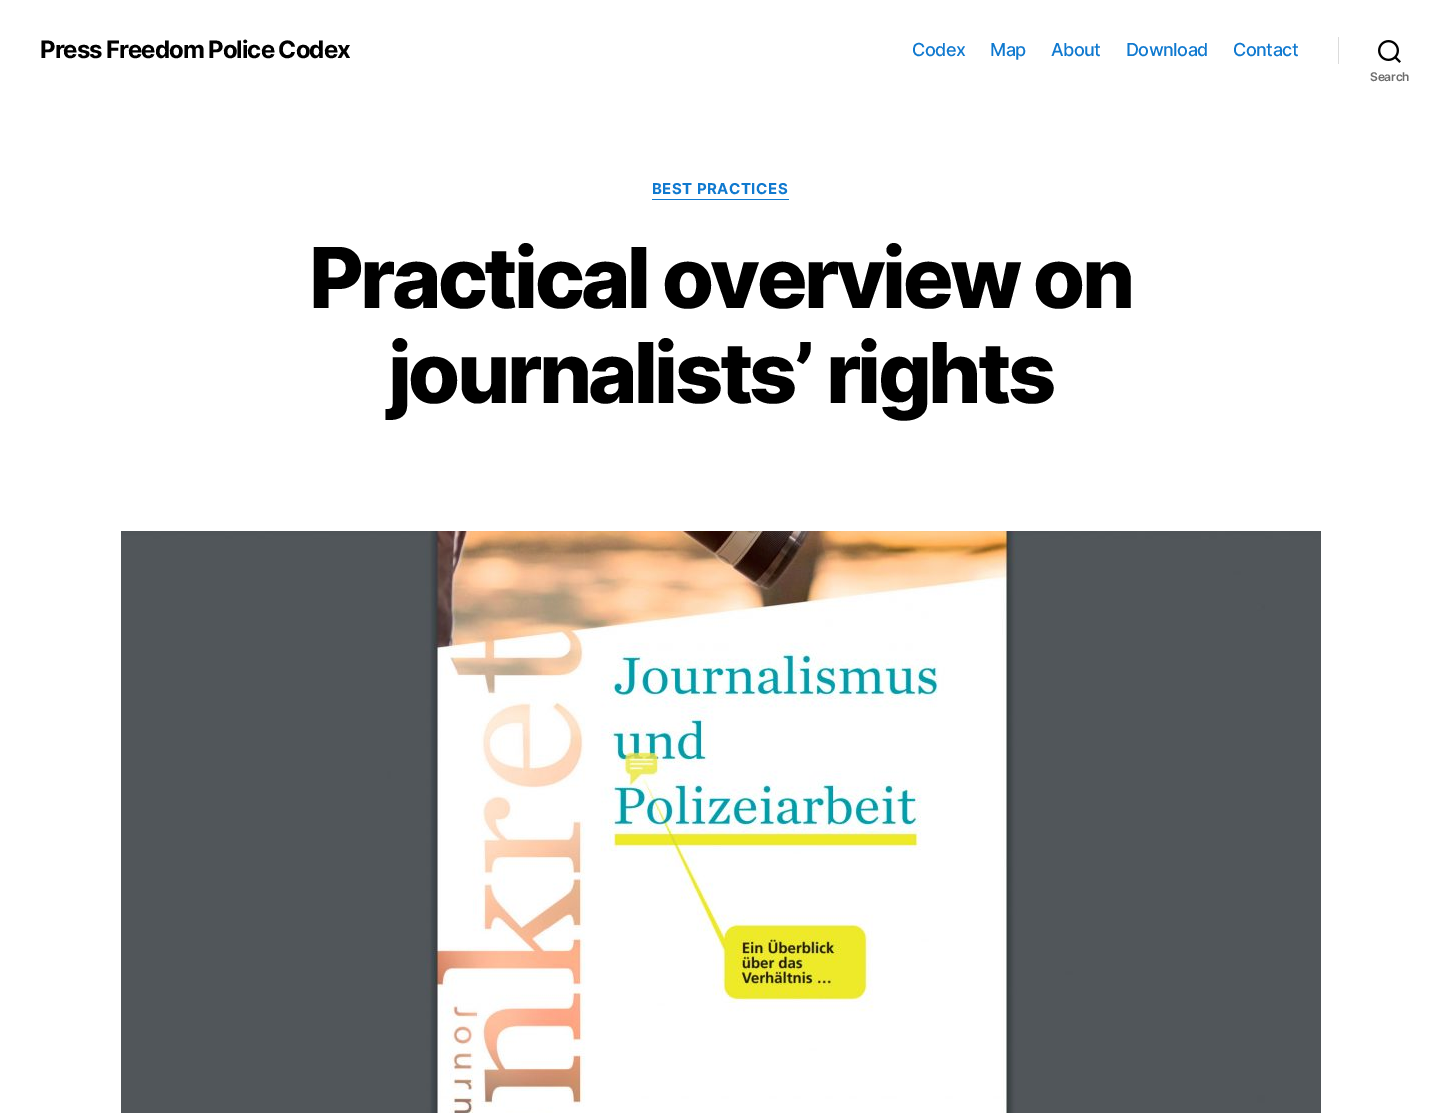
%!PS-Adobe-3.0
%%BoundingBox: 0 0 1441 1113
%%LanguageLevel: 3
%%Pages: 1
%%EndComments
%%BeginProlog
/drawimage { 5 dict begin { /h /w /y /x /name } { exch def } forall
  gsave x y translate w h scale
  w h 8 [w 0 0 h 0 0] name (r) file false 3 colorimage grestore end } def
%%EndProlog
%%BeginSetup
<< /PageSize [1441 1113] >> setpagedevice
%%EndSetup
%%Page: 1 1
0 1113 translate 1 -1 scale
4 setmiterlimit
1 setgray
0 0 1441 1113 rectfill
0.859 setgray
1338 37 1 27 rectfill
(images/1.raw) 1378 40 23 23 drawimage
0.063 0.475 0.812 setrgbcolor
652 199 137 1 rectfill
(images/2.raw) 121 531 1200 582 drawimage
/Inter-Bold [24 0 0 -24 0 0] selectfont
0 setgray
40 58 moveto -1 0 (Press Freedom Police Codex) ashow
/Inter-Medium [18 0 0 -18 0 0] selectfont
0.063 0.475 0.812 setrgbcolor
912 56 moveto -0.5 0 (Codex) ashow
990 56 moveto -0.5 0 (Map) ashow
1051 56 moveto -0.5 0 (About) ashow
1126 56 moveto -0.5 0 (Download) ashow
1233 56 moveto -0.5 0 (Contact) ashow
/Inter-SemiBold [12 0 0 -12 0 0] selectfont
0.427 setgray
1370 81 moveto -0.25 0 (Search) ashow
/Inter-Bold [15 0 0 -15 0 0] selectfont
0.063 0.475 0.812 setrgbcolor
652 194 moveto 0.5 0 (BEST PRACTICES) ashow
/Inter-ExtraBold [84 0 0 -84 0 0] selectfont
0 setgray
309 308 moveto -3.5 0 (Practical overview on) ashow
388 403 moveto -3.5 0 (journalists’ rights) ashow
showpage
%%EOF
